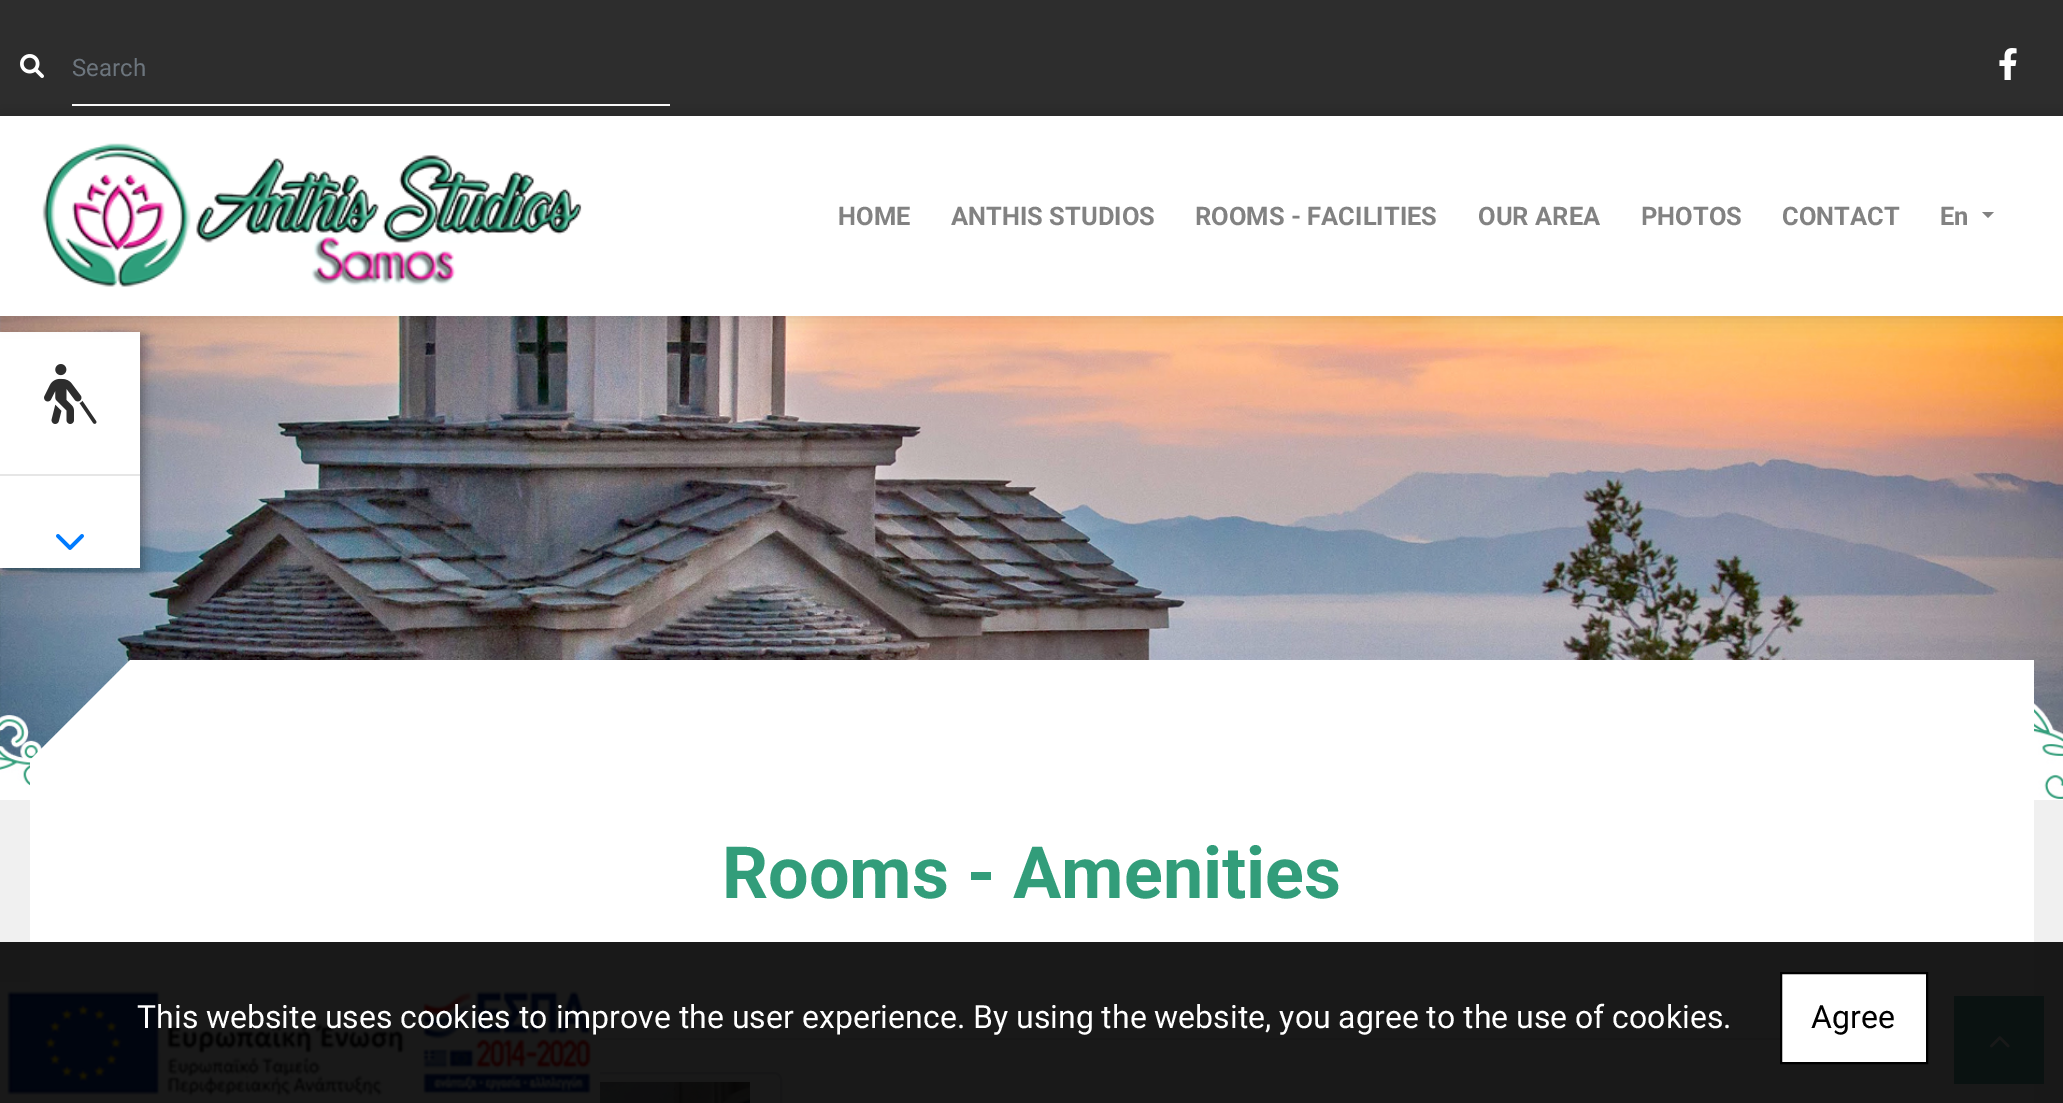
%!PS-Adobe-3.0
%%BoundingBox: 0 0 2063 1103
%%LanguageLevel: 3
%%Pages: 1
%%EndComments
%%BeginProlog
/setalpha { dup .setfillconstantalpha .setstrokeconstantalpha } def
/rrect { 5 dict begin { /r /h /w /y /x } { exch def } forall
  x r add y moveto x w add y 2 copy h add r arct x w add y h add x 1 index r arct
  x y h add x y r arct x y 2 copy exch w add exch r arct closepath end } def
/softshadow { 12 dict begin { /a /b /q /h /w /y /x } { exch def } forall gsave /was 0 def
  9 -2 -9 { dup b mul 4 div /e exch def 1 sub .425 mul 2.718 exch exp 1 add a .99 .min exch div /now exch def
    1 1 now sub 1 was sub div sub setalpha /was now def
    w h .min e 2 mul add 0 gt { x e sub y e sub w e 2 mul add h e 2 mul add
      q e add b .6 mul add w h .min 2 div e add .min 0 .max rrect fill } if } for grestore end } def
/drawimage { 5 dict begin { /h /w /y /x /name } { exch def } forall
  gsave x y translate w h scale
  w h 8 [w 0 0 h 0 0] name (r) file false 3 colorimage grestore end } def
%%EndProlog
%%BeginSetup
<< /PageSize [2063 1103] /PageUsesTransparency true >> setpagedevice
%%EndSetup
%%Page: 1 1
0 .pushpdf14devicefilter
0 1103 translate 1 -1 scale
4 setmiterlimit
0.941 setgray
0 0 2063 1103 rectfill
0.176 setgray
0 0 2063 116 rectfill
(images/1.raw) 20 54 24 24 drawimage
1 setgray
70 104 600 2 rectfill
0.176 setgray
70 104 2 2 rectfill
(images/2.raw) 1999 48 18 32 drawimage
(images/4.raw) 0 316 2063 484 drawimage
0 setgray
4 336 140 236 0 5 0.31 softshadow
1 setgray
0 332 140 236 rectfill
0 setgray
0 116 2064 200 0 10 0.15 softshadow
1 setgray
0 116 2063 200 rectfill
(images/3.raw) 42 143 540 144 drawimage
0.51 setgray
newpath 1982 212 moveto 1994 212 lineto 1988 218 lineto closepath fill
(images/5.raw) 44 364 53 60 drawimage
0.902 setgray
0 474 140 2 rectfill
(images/6.raw) 56 534 28 16 drawimage
1 setgray
newpath 30 760 moveto 30 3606 lineto 2034 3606 lineto 2034 660 lineto 130 660 lineto closepath fill
0.871 0.886 0.902 setrgbcolor
2 setlinewidth
201 1073 580 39 7 rrect stroke
(images/7.raw) 0 982 600 121 drawimage
0.902 setgray
600 1038 1180 2 rectfill
(images/8.raw) 600 1082 150 21 drawimage
0.392 0.729 0.678 setrgbcolor
1954 996 90 88 rectfill
(images/9.raw) 1990 1036 20 12 drawimage
0.9 setalpha
0 setgray
0 942 2063 161 rectfill
1 setalpha
1 setgray
newpath 1781 973 moveto 1927 973 lineto 1927 1063 lineto 1781 1063 lineto closepath gsave fill grestore
0 setgray
stroke
/Roboto-Regular [24 0 0 -24 0 0] selectfont
0.424 0.459 0.49 setrgbcolor
72 76 moveto (Search) show
/Roboto-Bold [25.5 0 0 -25.5 0 0] selectfont
0.51 setgray
838 225 moveto (HOME) show
951 225 moveto (ANTHIS STUDIOS) show
1195 225 moveto (ROOMS - FACILITIES) show
1478 225 moveto (OUR AREA) show
1641 225 moveto (PHOTOS) show
1782 225 moveto (CONTACT) show
1940 225 moveto (En) show
/Roboto-Bold [72 0 0 -72 0 0] selectfont
0.196 0.616 0.478 setrgbcolor
722 898 moveto (Rooms - Amenities) show
/Roboto-Regular [32 0 0 -32 0 0] selectfont
1 setgray
137 1028 moveto (This website uses cookies to improve the user experience. By using the website, you agree to the use of cookies.) show
0 setgray
1811 1028 moveto (Agree) show
.poppdf14devicefilter showpage
%%EOF
